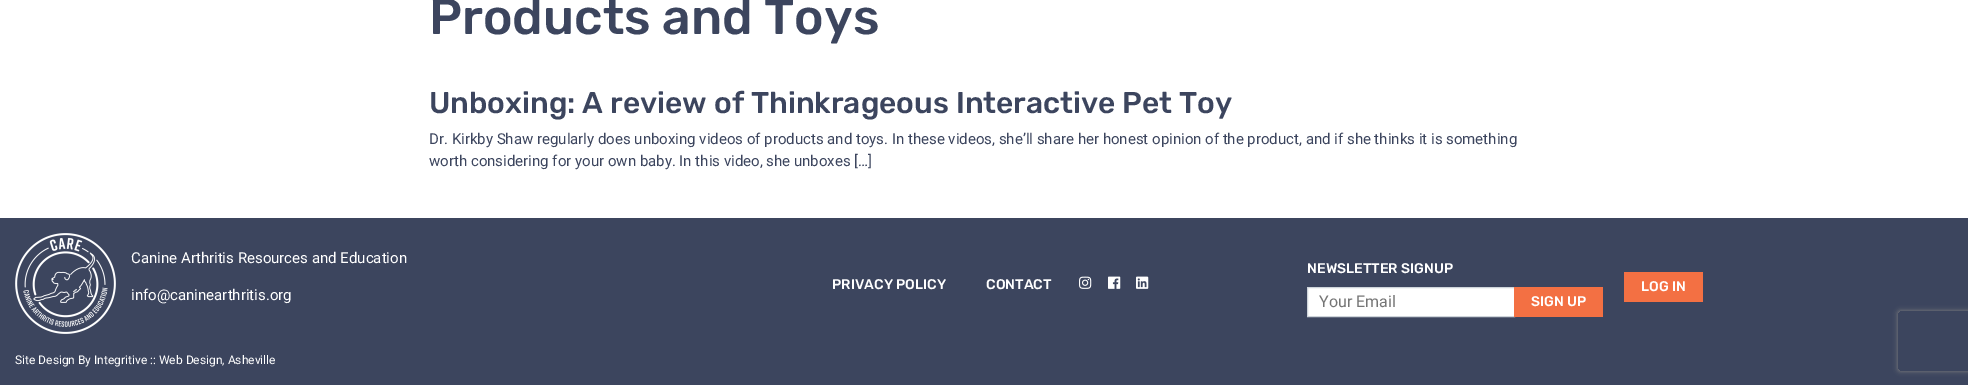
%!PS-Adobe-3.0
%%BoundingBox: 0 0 1968 385
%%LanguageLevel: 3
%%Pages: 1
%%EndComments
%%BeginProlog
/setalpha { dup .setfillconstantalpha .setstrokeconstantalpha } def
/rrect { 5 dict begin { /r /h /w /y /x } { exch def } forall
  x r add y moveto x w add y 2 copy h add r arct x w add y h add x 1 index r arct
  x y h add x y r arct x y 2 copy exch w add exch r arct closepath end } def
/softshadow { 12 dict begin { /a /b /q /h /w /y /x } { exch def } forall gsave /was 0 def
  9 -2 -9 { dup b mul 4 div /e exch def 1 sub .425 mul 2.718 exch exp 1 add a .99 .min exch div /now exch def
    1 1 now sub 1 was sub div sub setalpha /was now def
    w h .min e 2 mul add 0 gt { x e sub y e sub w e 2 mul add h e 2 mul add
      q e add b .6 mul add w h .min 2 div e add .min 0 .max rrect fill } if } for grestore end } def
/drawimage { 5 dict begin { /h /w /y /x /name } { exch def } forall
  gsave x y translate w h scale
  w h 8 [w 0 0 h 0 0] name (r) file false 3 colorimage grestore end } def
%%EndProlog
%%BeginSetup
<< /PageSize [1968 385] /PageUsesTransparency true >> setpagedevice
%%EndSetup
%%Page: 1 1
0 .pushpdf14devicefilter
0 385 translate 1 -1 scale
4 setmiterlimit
1 setgray
0 0 1968 385 rectfill
0.235 0.271 0.369 setrgbcolor
0 218 1968 167 rectfill
(images/1.raw) 15 233 101 101 drawimage
(images/2.raw) 1079 276 13 13 drawimage
(images/3.raw) 1108 276 13 13 drawimage
(images/4.raw) 1136 276 13 13 drawimage
1 setgray
newpath 1307.5 287.5 moveto 1514.5 287.5 lineto 1514.5 316.5 lineto 1307.5 316.5 lineto closepath gsave fill grestore
0.808 0.831 0.855 setrgbcolor
stroke
gsave
newpath 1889 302 moveto 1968 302 lineto 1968 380 lineto 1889 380 lineto closepath 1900 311 moveto 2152 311 lineto 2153 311 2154 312 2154 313 curveto 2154 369 lineto 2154 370 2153 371 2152 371 curveto 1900 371 lineto 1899 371 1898 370 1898 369 curveto 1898 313 lineto 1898 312 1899 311 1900 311 curveto closepath eoclip newpath
0.502 setgray
1898 311 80 60 2 2.5 1 softshadow
grestore
0.953 0.439 0.263 setrgbcolor
1514 287 89 30 rectfill
1624 272 79 30 rectfill
/Rubik-Light [50 0 0 -50 0 0] selectfont
0.235 0.271 0.369 setrgbcolor
429 34 moveto (Products and Toys) show
/Rubik-Light [30 0 0 -30 0 0] selectfont
429 113 moveto (Unboxing: A review of Thinkrageous Interactive Pet Toy) show
/Roboto-Regular [15 0 0 -15 0 0] selectfont
429 144 moveto (Dr. Kirkby Shaw regularly does unboxing videos of products and toys. In these videos, she’ll share her honest opinion of the product, and if she thinks it is something) show
429 166 moveto (worth considering for your own baby. In this video, she unboxes […]) show
1 setgray
131 263 moveto (Canine Arthritis Resources and Education) show
131 300 moveto (info@caninearthritis.org) show
/Rubik-Light [14 0 0 -14 0 0] selectfont
832 289 moveto (PRIVACY POLICY) show
986 289 moveto (CONTACT) show
1307 273 moveto (NEWSLETTER SIGNUP) show
/Roboto-Regular [16 0 0 -16 0 0] selectfont
0.459 setgray
1319 307 moveto (Your Email) show
/Rubik-Light [14 0 0 -14 0 0] selectfont
1 setgray
1531 306 moveto (SIGN UP) show
1641 291 moveto (LOG IN) show
/Roboto-Regular [12 0 0 -12 0 0] selectfont
15 364 moveto (Site Design By Integritive :: Web Design, Asheville) show
.poppdf14devicefilter showpage
%%EOF
